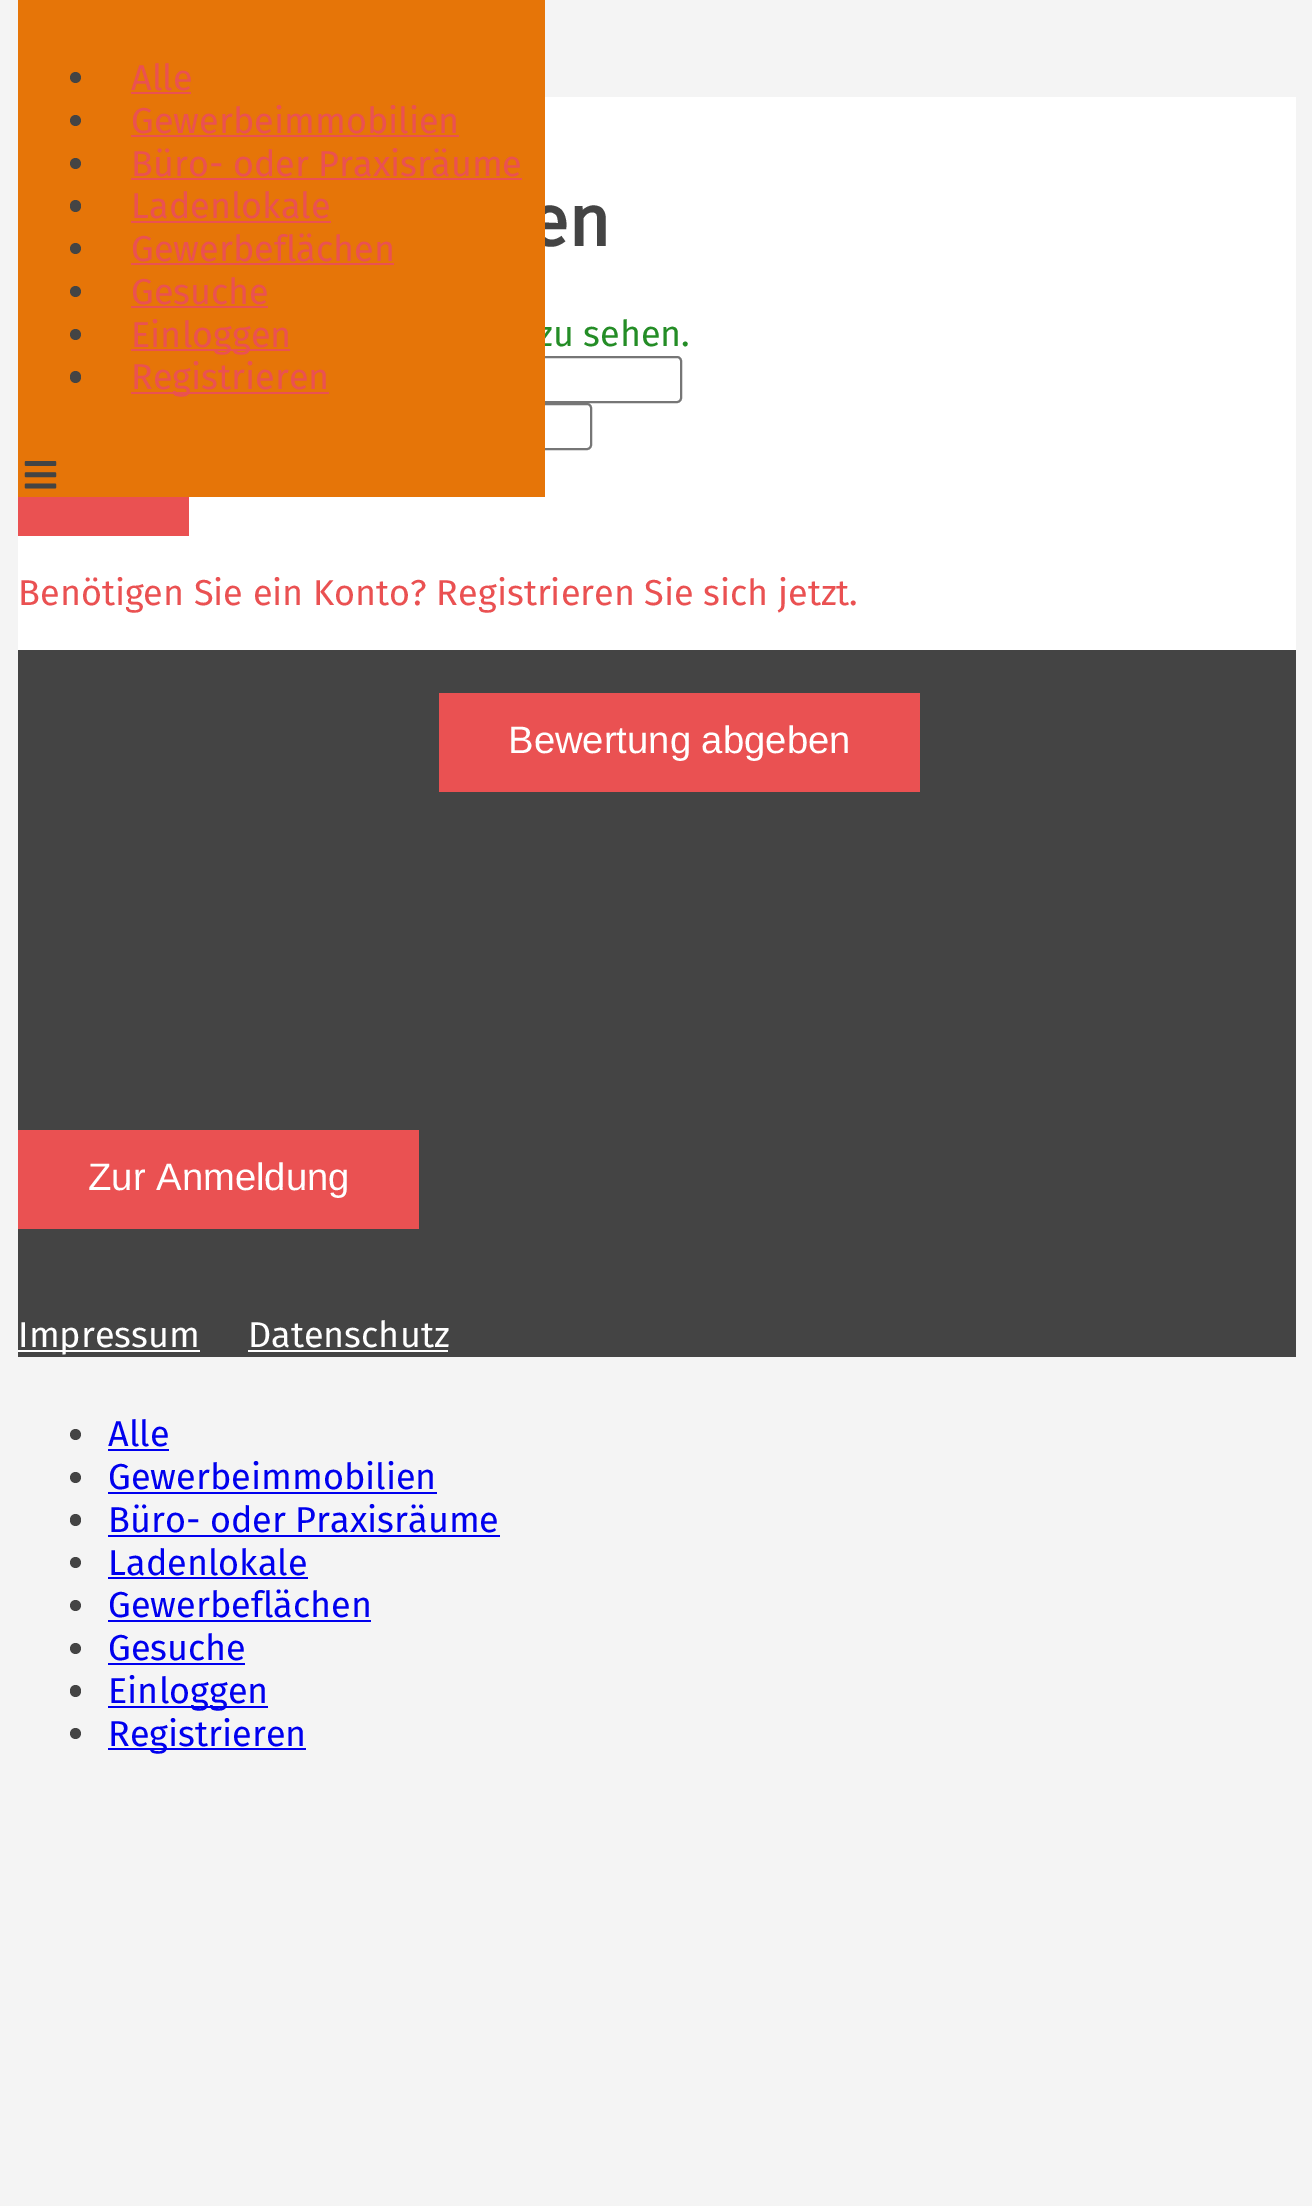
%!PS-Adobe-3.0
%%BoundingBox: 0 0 1312 2206
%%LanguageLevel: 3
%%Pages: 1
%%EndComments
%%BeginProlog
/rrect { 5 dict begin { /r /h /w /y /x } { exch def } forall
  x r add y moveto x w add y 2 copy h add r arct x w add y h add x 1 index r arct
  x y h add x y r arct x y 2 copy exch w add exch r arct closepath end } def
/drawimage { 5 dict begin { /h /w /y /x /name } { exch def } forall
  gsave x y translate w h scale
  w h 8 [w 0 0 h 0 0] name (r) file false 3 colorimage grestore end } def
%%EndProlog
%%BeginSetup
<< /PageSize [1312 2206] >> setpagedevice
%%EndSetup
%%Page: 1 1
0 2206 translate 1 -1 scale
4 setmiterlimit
0.957 setgray
0 0 1312 2206 rectfill
1 setgray
18 97 1278 553 rectfill
0.463 setgray
2 setlinewidth
267 357 414 45 4 rrect stroke
177 404 414 45 4 rrect stroke
0.918 0.318 0.322 setrgbcolor
18 497 171 39 rectfill
0.267 setgray
18 650 1278 707 rectfill
0.918 0.318 0.322 setrgbcolor
439 693 481 99 rectfill
18 1130 401 99 rectfill
1 setgray
18 1350 182 2 rectfill
248 1350 200 2 rectfill
0.267 setgray
newpath 75.5 1434.5 5.5 0 360 arc closepath fill
0 0 0.933 setrgbcolor
108 1449 61 2 rectfill
0.267 setgray
newpath 75.5 1477.5 5.5 0 360 arc closepath fill
0 0 0.933 setrgbcolor
108 1492 329 2 rectfill
0.267 setgray
70 1514 11 12 5.5 rrect fill
0 0 0.933 setrgbcolor
108 1535 392 2 rectfill
0.267 setgray
newpath 75.5 1562.5 5.5 0 360 arc closepath fill
0 0 0.933 setrgbcolor
108 1577 200 2 rectfill
0.267 setgray
newpath 75.5 1605.5 5.5 0 360 arc closepath fill
0 0 0.933 setrgbcolor
108 1620 263 2 rectfill
0.267 setgray
newpath 75.5 1648.5 5.5 0 360 arc closepath fill
0 0 0.933 setrgbcolor
108 1663 137 2 rectfill
0.267 setgray
70 1685 11 12 5.5 rrect fill
0 0 0.933 setrgbcolor
108 1706 160 2 rectfill
0.267 setgray
newpath 75.5 1733.5 5.5 0 360 arc closepath fill
0 0 0.933 setrgbcolor
108 1748 198 2 rectfill
/FiraSans-Bold [72 0 0 -72 0 0] selectfont
0.267 setgray
529 246 moveto (en) show
/FiraSans-Regular [36 0 0 -36 0 0] selectfont
0.141 0.553 0.149 setrgbcolor
537 346 moveto (zu sehen.) show
0.902 0.459 0.031 setrgbcolor
18 0 527 497 rectfill
(images/1.raw) 24 461 33 28 drawimage
0.918 0.318 0.322 setrgbcolor
131 392 198 2 rectfill
131 389 moveto (Registrieren) show
0.267 setgray
70 371 11 12 5.5 rrect fill
0.918 0.318 0.322 setrgbcolor
131 349 159 2 rectfill
131 347 moveto (Einloggen) show
0.267 setgray
newpath 75.5 334.5 5.5 0 360 arc closepath fill
0.918 0.318 0.322 setrgbcolor
131 304 moveto (Gesuche) show
131 306 137 2 rectfill
0.267 setgray
newpath 75.5 291.5 5.5 0 360 arc closepath fill
0.918 0.318 0.322 setrgbcolor
131 261 moveto (Gewerbeflächen) show
131 263 263 2 rectfill
0.267 setgray
newpath 75.5 248.5 5.5 0 360 arc closepath fill
0.918 0.318 0.322 setrgbcolor
131 218 moveto (Ladenlokale) show
131 221 200 2 rectfill
0.267 setgray
70 200 11 12 5.5 rrect fill
0.918 0.318 0.322 setrgbcolor
131 176 moveto (Büro- oder Praxisräume) show
131 178 391 2 rectfill
0.267 setgray
newpath 75.5 163.5 5.5 0 360 arc closepath fill
0.918 0.318 0.322 setrgbcolor
131 133 moveto (Gewerbeimmobilien) show
131 135 328 2 rectfill
0.267 setgray
newpath 75.5 120.5 5.5 0 360 arc closepath fill
0.918 0.318 0.322 setrgbcolor
131 90 moveto (Alle) show
131 92 60 2 rectfill
0.267 setgray
newpath 75.5 77.5 5.5 0 360 arc closepath fill
0.918 0.318 0.322 setrgbcolor
18 605 moveto (Benötigen Sie ein Konto? Registrieren Sie sich jetzt.) show
/LiberationSans-Regular [38.25 0 0 -38.25 0 0] selectfont
1 setgray
508 753 moveto (Bewertung abgeben) show
88 1190 moveto (Zur Anmeldung) show
/FiraSans-Regular [36 0 0 -36 0 0] selectfont
18 1347 moveto (Impressum) show
248 1347 moveto (Datenschutz) show
0 0 0.933 setrgbcolor
108 1446 moveto (Alle) show
108 1489 moveto (Gewerbeimmobilien) show
108 1532 moveto (Büro- oder Praxisräume) show
108 1575 moveto (Ladenlokale) show
108 1617 moveto (Gewerbeflächen) show
108 1660 moveto (Gesuche) show
108 1703 moveto (Einloggen) show
108 1746 moveto (Registrieren) show
showpage
%%EOF
